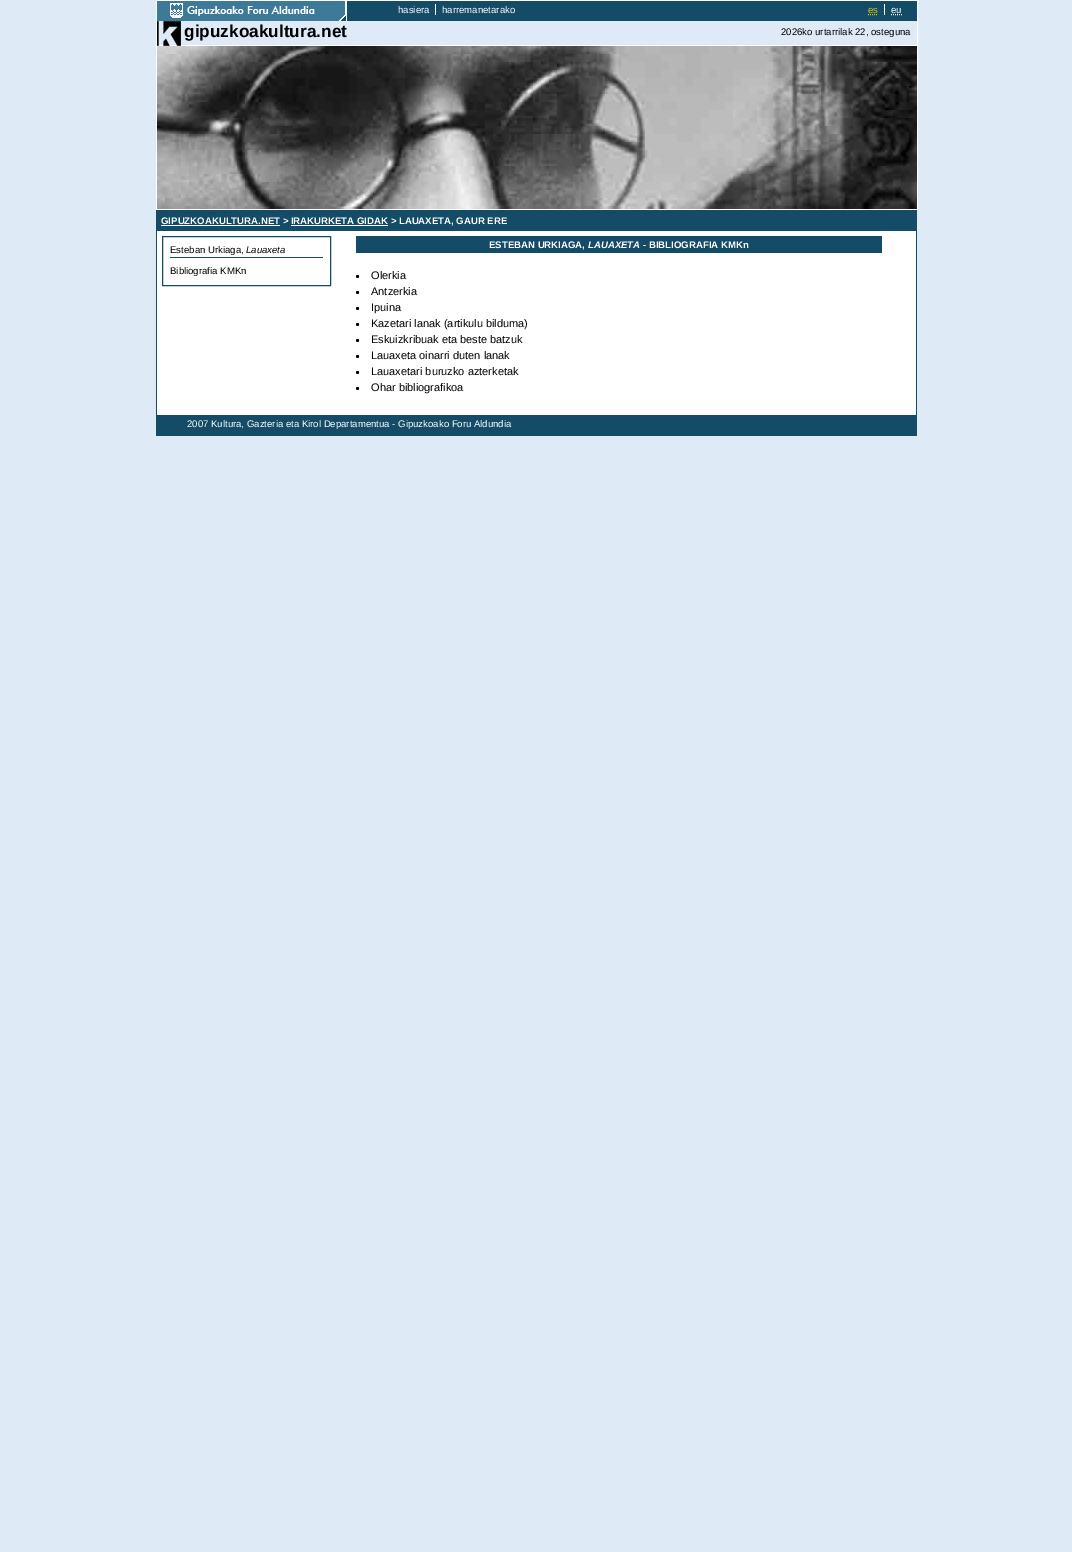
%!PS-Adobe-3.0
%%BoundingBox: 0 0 1072 1552
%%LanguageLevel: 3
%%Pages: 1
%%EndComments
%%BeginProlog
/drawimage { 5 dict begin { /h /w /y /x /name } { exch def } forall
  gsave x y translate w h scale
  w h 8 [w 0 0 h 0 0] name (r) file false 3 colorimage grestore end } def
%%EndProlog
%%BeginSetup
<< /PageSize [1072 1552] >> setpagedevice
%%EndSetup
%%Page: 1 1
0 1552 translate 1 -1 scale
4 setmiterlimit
0.871 0.918 0.961 setrgbcolor
0 0 1072 1552 rectfill
1 setgray
156.5 0.5 761 18 rectstroke
156.5 19.5 761 26 rectstroke
(images/1.raw) 157 1 190 20 drawimage
0.078 0.294 0.4 setrgbcolor
347 1 570 20 rectfill
1 setgray
435 4 1 11 rectfill
884 4 1 11 rectfill
0.851 0.784 0.035 setrgbcolor
[1 1] 0 setdash
newpath 868 14.5 moveto 878 14.5 lineto stroke
1 setgray
newpath 891 14.5 moveto 902 14.5 lineto stroke
(images/2.raw) 157 21 24 25 drawimage
917 46 1 164 rectfill
156 209 762 1 rectfill
156 46 1 164 rectfill
(images/3.raw) 157 46 760 163 drawimage
0.078 0.294 0.4 setrgbcolor
156 210 761 21 rectfill
1 setgray
161 225 119 1 rectfill
291 225 97 1 rectfill
157 231 759 184 rectfill
0.078 0.294 0.4 setrgbcolor
916 231 1 184 rectfill
156 231 1 184 rectfill
[] 0 setdash
162.5 236.5 168 49 rectstroke
170 257 153 1 rectfill
356 236 526 17 rectfill
0 setgray
newpath 357.5 276.5 1.5 0 360 arc closepath fill
newpath 357.5 292.5 1.5 0 360 arc closepath fill
newpath 357.5 308.5 1.5 0 360 arc closepath fill
newpath 357.5 324.5 1.5 0 360 arc closepath fill
newpath 357.5 340.5 1.5 0 360 arc closepath fill
newpath 357.5 356.5 1.5 0 360 arc closepath fill
newpath 357.5 372.5 1.5 0 360 arc closepath fill
newpath 357.5 388.5 1.5 0 360 arc closepath fill
0.078 0.294 0.4 setrgbcolor
156 415 761 21 rectfill
/LiberationSans-Regular [9.6 0 0 -9.6 0 0] selectfont
1 setgray
398 13 moveto (hasiera) show
442 13 moveto (harremanetarako) show
0.851 0.784 0.035 setrgbcolor
868 13 moveto (es) show
1 setgray
891 13 moveto (eu) show
/LiberationSans-Bold [17.25 0 0 -17.25 0 0] selectfont
0 setgray
184 37 moveto (gipuzkoakultura.net) show
/LiberationSans-Regular [9.6 0 0 -9.6 0 0] selectfont
781 35 moveto (2026ko urtarrilak 22, osteguna) show
/LiberationSans-Bold [9.6 0 0 -9.6 0 0] selectfont
1 setgray
161 224 moveto (GIPUZKOAKULTURA.NET > IRAKURKETA GIDAK > LAUAXETA, GAUR ERE) show
/LiberationSans-Regular [9.6 0 0 -9.6 0 0] selectfont
0 setgray
170 253 moveto (Esteban Urkiaga,) show
/LiberationSans-Italic [9.6 0 0 -9.6 0 0] selectfont
246 253 moveto (Lauaxeta) show
/LiberationSans-Regular [9.6 0 0 -9.6 0 0] selectfont
170 274 moveto (Bibliografia KMKn) show
/LiberationSans-Bold [9.6 0 0 -9.6 0 0] selectfont
1 setgray
489 248 moveto (ESTEBAN URKIAGA,) show
/LiberationSans-BoldItalic [9.6 0 0 -9.6 0 0] selectfont
588 248 moveto (LAUAXETA) show
/LiberationSans-Bold [9.6 0 0 -9.6 0 0] selectfont
643 248 moveto (- BIBLIOGRAFIA KMKn) show
/LiberationSans-Regular [11 0 0 -11 0 0] selectfont
0 setgray
371 279 moveto (Olerkia) show
371 295 moveto (Antzerkia) show
371 311 moveto (Ipuina) show
371 327 moveto (Kazetari lanak \(artikulu bilduma\)) show
371 343 moveto (Eskuizkribuak eta beste batzuk) show
371 359 moveto (Lauaxeta oinarri duten lanak) show
371 375 moveto (Lauaxetari buruzko azterketak) show
371 391 moveto (Ohar bibliografikoa) show
/LiberationSans-Regular [9.6 0 0 -9.6 0 0] selectfont
1 setgray
187 427 moveto (2007 Kultura, Gazteria eta Kirol Departamentua - Gipuzkoako Foru Aldundia) show
showpage
%%EOF
